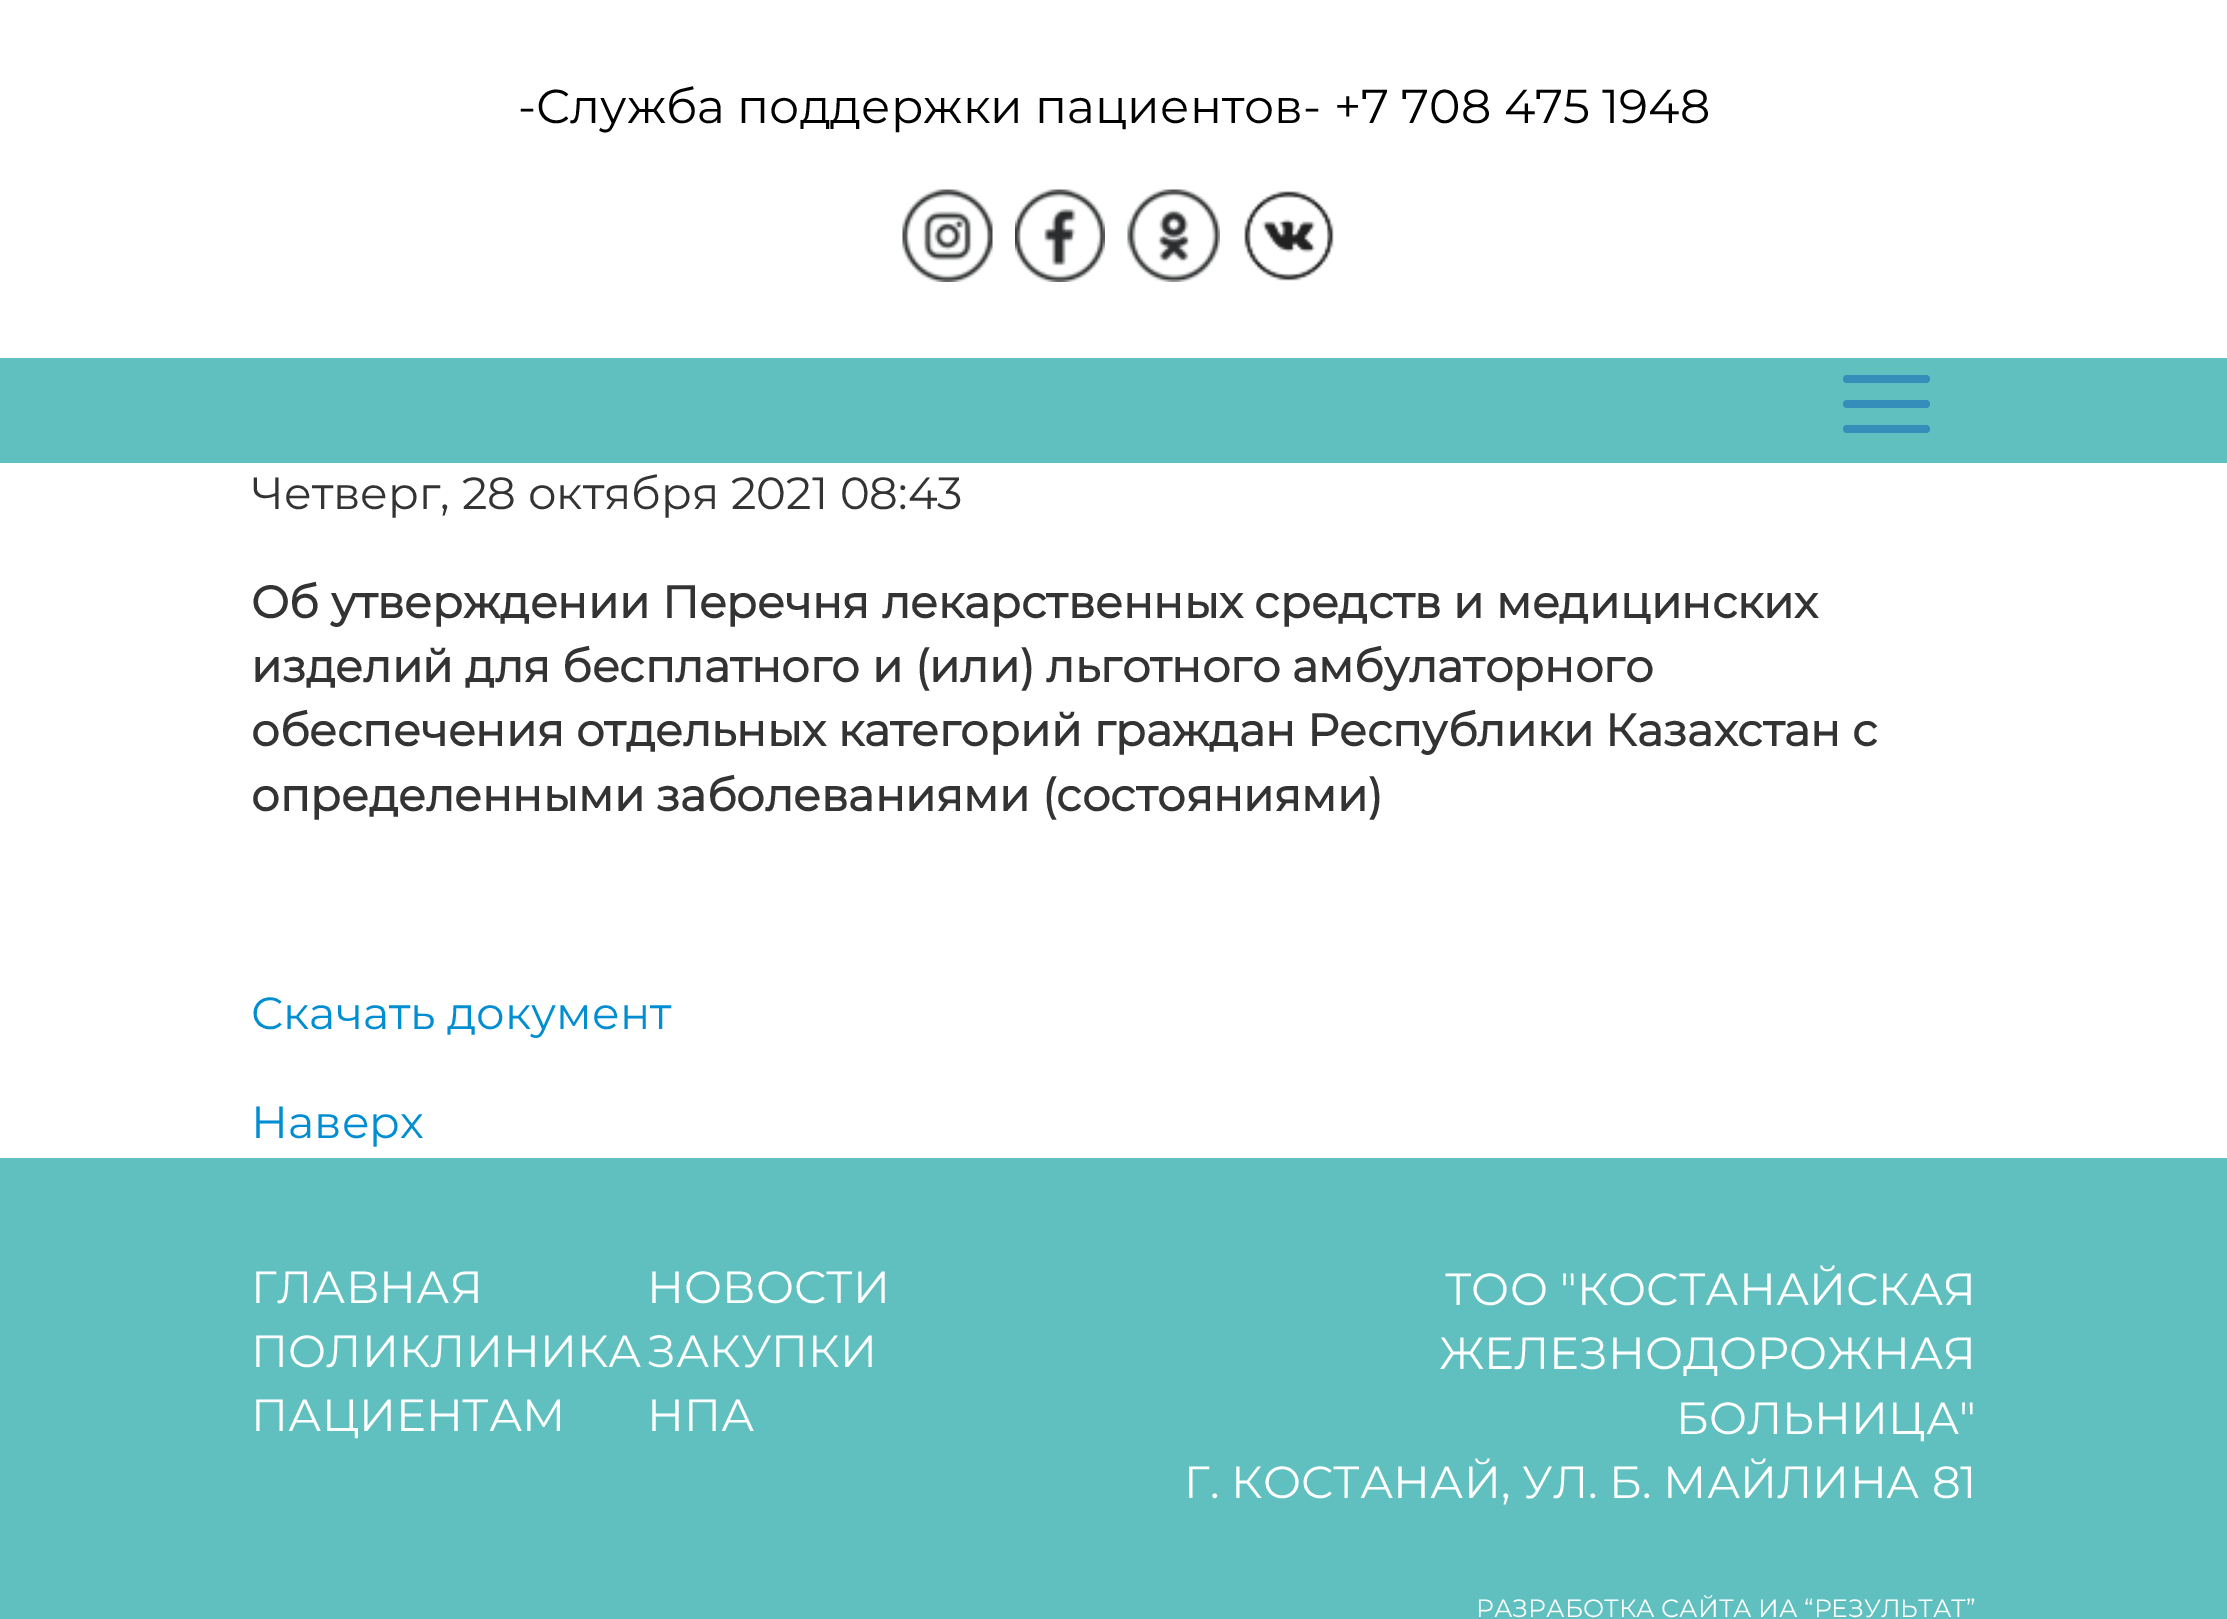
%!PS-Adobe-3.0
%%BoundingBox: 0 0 2227 1619
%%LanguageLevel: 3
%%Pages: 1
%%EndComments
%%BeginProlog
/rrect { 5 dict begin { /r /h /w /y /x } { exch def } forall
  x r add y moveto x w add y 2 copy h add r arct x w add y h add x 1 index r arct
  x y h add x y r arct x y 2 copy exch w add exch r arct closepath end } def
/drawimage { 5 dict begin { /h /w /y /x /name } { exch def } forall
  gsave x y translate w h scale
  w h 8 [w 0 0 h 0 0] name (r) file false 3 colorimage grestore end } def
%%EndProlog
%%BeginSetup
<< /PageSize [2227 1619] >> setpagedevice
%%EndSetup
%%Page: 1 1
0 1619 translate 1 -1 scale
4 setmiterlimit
1 setgray
0 0 2227 1619 rectfill
(images/1.raw) 902 189 91 93 drawimage
(images/2.raw) 1015 189 90 93 drawimage
(images/3.raw) 1127 189 93 93 drawimage
(images/4.raw) 1244 191 90 90 drawimage
0.373 0.753 0.749 setrgbcolor
0 358 2227 105 rectfill
0.208 0.553 0.729 setrgbcolor
1843 400 87 8 4 rrect fill
1843 375 87 8 4 rrect fill
1843 425 87 8 4 rrect fill
0.373 0.753 0.749 setrgbcolor
0 1158 2227 461 rectfill
/Montserrat-Regular [47.5 0 0 -47.5 0 0] selectfont
0 setgray
518 123 moveto (-Служба поддержки пациентов- +7 708 475 1948) show
/Montserrat-Regular [45 0 0 -45 0 0] selectfont
0.2 setgray
251 509 moveto (Четверг, 28 октября 2021 08:43) show
/Montserrat-Bold [45 0 0 -45 0 0] selectfont
251 618 moveto (Об утверждении Перечня лекарственных средств и медицинских) show
251 682 moveto (изделий для бесплатного и \(или\) льготного амбулаторного) show
251 746 moveto (обеспечения отдельных категорий граждан Республики Казахстан с) show
251 811 moveto (определенными заболеваниями \(состояниями\)) show
/Montserrat-Regular [45 0 0 -45 0 0] selectfont
0 0.553 0.824 setrgbcolor
251 1029 moveto (Скачать документ) show
251 1138 moveto (Наверх) show
1 setgray
251 1303 moveto (ГЛАВНАЯ) show
647 1303 moveto (НОВОСТИ) show
251 1367 moveto (ПОЛИКЛИНИКА) show
647 1367 moveto (ЗАКУПКИ) show
251 1431 moveto (ПАЦИЕНТАМ) show
647 1431 moveto (НПА) show
1445 1305 moveto (ТОО "КОСТАНАЙСКАЯ) show
1439 1369 moveto (ЖЕЛЕЗНОДОРОЖНАЯ) show
1676 1434 moveto (БОЛЬНИЦА") show
1184 1498 moveto (Г. КОСТАНАЙ, УЛ. Б. МАЙЛИНА 81) show
/Montserrat-Regular [25 0 0 -25 0 0] selectfont
1476 1617 moveto (РАЗРАБОТКА САЙТА ИА “РЕЗУЛЬТАТ”) show
showpage
%%EOF
